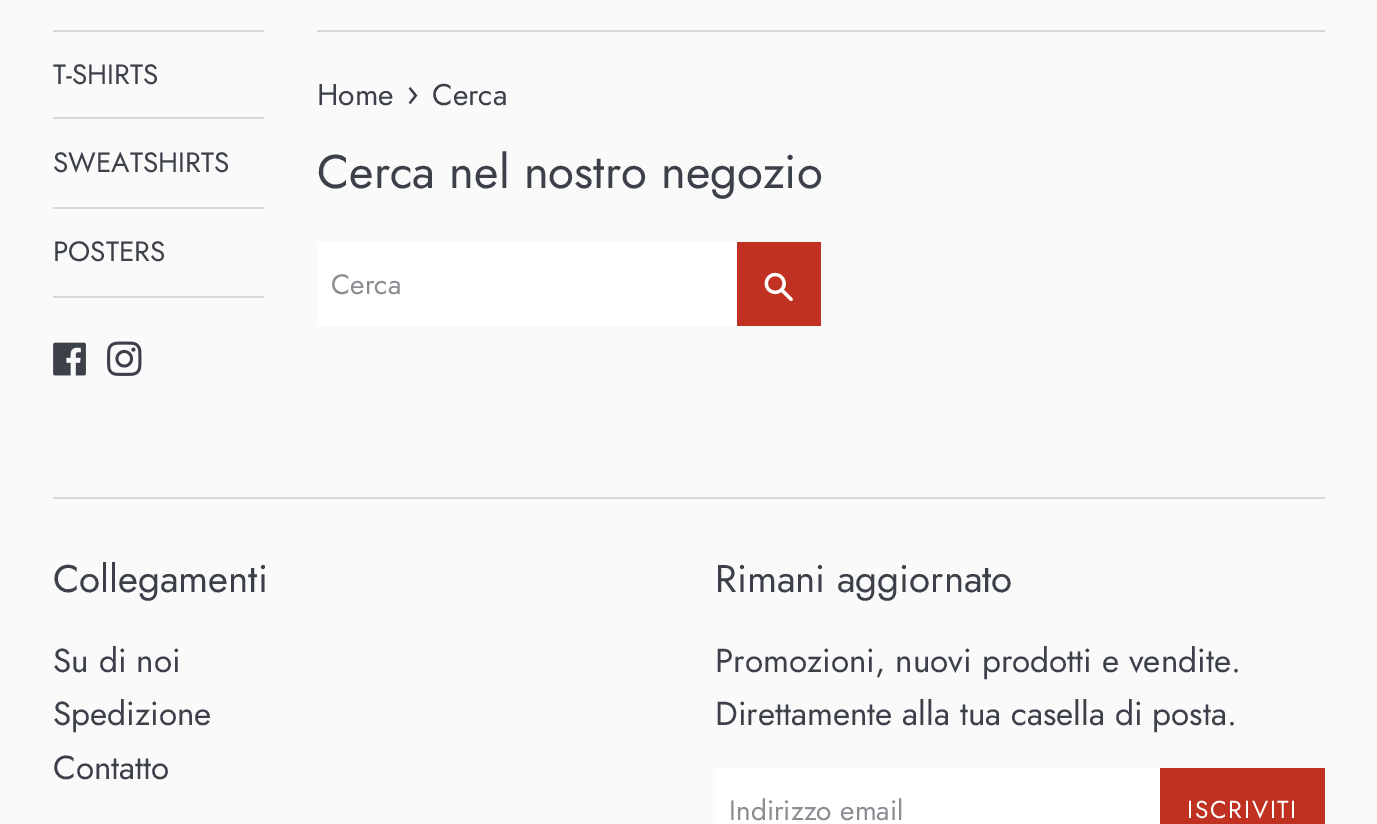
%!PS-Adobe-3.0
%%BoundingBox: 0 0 1377 824
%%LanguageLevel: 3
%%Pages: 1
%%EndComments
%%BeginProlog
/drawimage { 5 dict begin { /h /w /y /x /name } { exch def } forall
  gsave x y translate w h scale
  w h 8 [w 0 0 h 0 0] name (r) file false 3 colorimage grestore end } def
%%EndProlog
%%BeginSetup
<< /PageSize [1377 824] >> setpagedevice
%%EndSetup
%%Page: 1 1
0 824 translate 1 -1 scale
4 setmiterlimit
0.98 setgray
0 0 1377 824 rectfill
0.843 0.847 0.824 setrgbcolor
53 30 211 2 rectfill
53 117 211 2 rectfill
53 207 211 2 rectfill
53 296 211 2 rectfill
(images/1.raw) 53 342 33 34 drawimage
(images/2.raw) 107 341 35 35 drawimage
317 30 1008 2 rectfill
1 setgray
317 242 420 84 rectfill
0.757 0.192 0.129 setrgbcolor
737 242 84 84 rectfill
(images/3.raw) 764 272 29 29 drawimage
0.843 0.847 0.824 setrgbcolor
53 497 1272 2 rectfill
1 setgray
716 768 444 56 rectfill
0.757 0.192 0.129 setrgbcolor
1160 768 165 56 rectfill
/Jost-Regular [28 0 0 -28 0 0] selectfont
0.235 0.251 0.286 setrgbcolor
53 84 moveto (T-SHIRTS) show
53 172 moveto (SWEATSHIRTS) show
53 261 moveto (POSTERS) show
/Jost-Regular [30 0 0 -30 0 0] selectfont
317 105 moveto (Home) show
/Jost-Regular [37 0 0 -37 0 0] selectfont
406 105 moveto (›) show
/Jost-Regular [30 0 0 -30 0 0] selectfont
432 105 moveto (Cerca) show
/Jost-Regular [47.25 0 0 -47.25 0 0] selectfont
317 188 moveto (Cerca nel nostro negozio) show
/Jost-Regular [28 0 0 -28 0 0] selectfont
0.541 0.549 0.573 setrgbcolor
331 294 moveto (Cerca) show
/Jost-Regular [38.5 0 0 -38.5 0 0] selectfont
0.235 0.251 0.286 setrgbcolor
53 592 moveto (Collegamenti) show
/Jost-Regular [33.25 0 0 -33.25 0 0] selectfont
53 672 moveto (Su di noi) show
53 725 moveto (Spedizione) show
53 779 moveto (Contatto) show
/Jost-Regular [38.5 0 0 -38.5 0 0] selectfont
715 592 moveto (Rimani aggiornato) show
/Jost-Regular [33.25 0 0 -33.25 0 0] selectfont
715 672 moveto (Promozioni, nuovi prodotti e vendite.) show
715 725 moveto (Direttamente alla tua casella di posta.) show
/Jost-Regular [28 0 0 -28 0 0] selectfont
0.541 0.549 0.573 setrgbcolor
729 820 moveto (Indirizzo email) show
/Jost-Regular [24.5 0 0 -24.5 0 0] selectfont
1 setgray
1187 818 moveto 1.75 0 (ISCRIVITI) ashow
showpage
%%EOF
